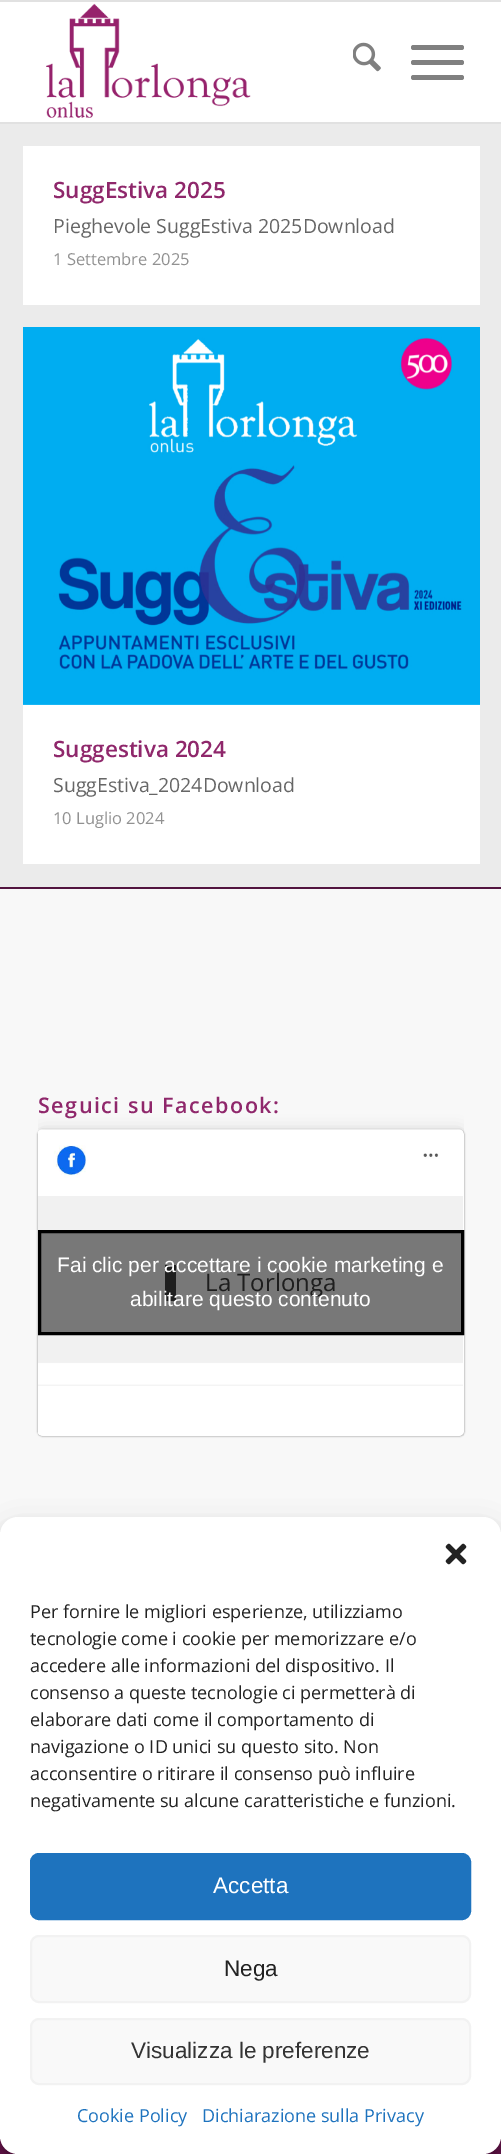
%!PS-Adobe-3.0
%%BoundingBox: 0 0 501 2154
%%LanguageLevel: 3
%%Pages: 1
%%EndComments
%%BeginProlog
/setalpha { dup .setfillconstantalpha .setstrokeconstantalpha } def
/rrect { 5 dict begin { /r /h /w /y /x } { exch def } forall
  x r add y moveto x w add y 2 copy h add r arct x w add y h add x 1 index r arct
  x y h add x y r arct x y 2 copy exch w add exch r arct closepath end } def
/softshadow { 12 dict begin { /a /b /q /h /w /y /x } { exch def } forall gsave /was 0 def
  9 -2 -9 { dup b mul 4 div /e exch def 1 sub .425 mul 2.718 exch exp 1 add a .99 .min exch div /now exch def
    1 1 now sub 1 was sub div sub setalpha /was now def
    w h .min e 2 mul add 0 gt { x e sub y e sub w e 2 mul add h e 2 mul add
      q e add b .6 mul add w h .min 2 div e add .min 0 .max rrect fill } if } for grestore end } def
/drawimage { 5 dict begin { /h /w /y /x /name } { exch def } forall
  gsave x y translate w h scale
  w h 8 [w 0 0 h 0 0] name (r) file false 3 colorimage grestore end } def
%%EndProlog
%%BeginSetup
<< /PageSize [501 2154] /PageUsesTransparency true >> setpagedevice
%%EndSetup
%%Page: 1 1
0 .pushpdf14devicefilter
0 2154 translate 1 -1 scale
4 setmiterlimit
0.42 0.075 0.318 setrgbcolor
0 0 501 2154 rectfill
1 setgray
0 2 501 120 rectfill
0.882 setgray
0 0 501 2 rectfill
0 122 501 2 rectfill
(images/1.raw) 46 3 205 115 drawimage
(images/2.raw) 353 42 28 30 drawimage
0.502 setgray
411 60 53 5 2.5 rrect fill
411 45 53 5 2.5 rrect fill
411 75 53 5 2.5 rrect fill
0.922 setgray
0 124 501 763 rectfill
1 setgray
23 146 457 159 rectfill
(images/3.raw) 23 327 457 378 drawimage
23 705 457 159 rectfill
0.973 setgray
0 889 501 646 rectfill
0.322 0.078 0.247 setrgbcolor
0 887 501 2 rectfill
gsave
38 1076 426 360 rectclip
0 setgray
38 1131 426 306 5 7.5 0.15 softshadow
grestore
0 setgray
38 1130 426 306 5 1 0.5 softshadow
1 setgray
38 1130 426 306 5 rrect fill
(images/4.raw) 38 1129 425 307 drawimage
0.239 setgray
165 1265 11 36 rectfill
0 setgray
0 1526 501 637 18 4.5 0.23 softshadow
0 1532 501 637 18 15 0.19 softshadow
1 setgray
0 1517 501 637 18 rrect fill
(images/5.raw) 445 1543 22 22 drawimage
0.118 0.451 0.745 setrgbcolor
31 1854 439 65 8 rrect gsave fill grestore
2 setlinewidth
stroke
0.976 setgray
31 1936 439 66 8 rrect gsave fill grestore
0.949 setgray
stroke
0.976 setgray
31 2019 439 65 8 rrect gsave fill grestore
0.949 setgray
stroke
/OpenSans-SemiBold [22.5 0 0 -22.5 0 0] selectfont
0.561 0.153 0.42 setrgbcolor
53 198 moveto (SuggEstiva 2025) show
/OpenSans-Regular [19.5 0 0 -19.5 0 0] selectfont
0.4 setgray
53 233 moveto (Pieghevole SuggEstiva 2025Download) show
/OpenSans-Regular [16.5 0 0 -16.5 0 0] selectfont
0.569 setgray
53 265 moveto (1 Settembre 2025) show
/OpenSans-SemiBold [22.5 0 0 -22.5 0 0] selectfont
0.561 0.153 0.42 setrgbcolor
53 757 moveto (Suggestiva 2024) show
/OpenSans-Regular [19.5 0 0 -19.5 0 0] selectfont
0.4 setgray
53 792 moveto (SuggEstiva_2024Download) show
/OpenSans-Regular [16.5 0 0 -16.5 0 0] selectfont
0.569 setgray
53 824 moveto (10 Luglio 2024) show
/OpenSans-SemiBold [21.5 0 0 -21.5 0 0] selectfont
0.561 0.153 0.42 setrgbcolor
38 1113 moveto 1.5 0 (Seguici su Facebook:) ashow
/OpenSans-Regular [24 0 0 -24 0 0] selectfont
0.239 setgray
205 1291 moveto (La Torlonga) show
0.5 setalpha
0 setgray
newpath 39.5 1231.5 moveto 462.5 1231.5 lineto 462.5 1333.5 lineto 39.5 1333.5 lineto closepath fill
1 setalpha
3 setlinewidth
newpath 39.5 1231.5 moveto 462.5 1231.5 lineto 462.5 1333.5 lineto 39.5 1333.5 lineto closepath stroke
/LiberationSans-Regular [21 0 0 -21 0 0] selectfont
1 setgray
130 1306 moveto (abilitare questo contenuto) show
57 1272 moveto (Fai clic per accettare i cookie marketing e) show
/OpenSans-Regular [18 0 0 -18 0 0] selectfont
0.133 setgray
30 1618 moveto (Per fornire le migliori esperienze, utilizziamo) show
30 1645 moveto (tecnologie come i cookie per memorizzare e/o) show
30 1672 moveto (accedere alle informazioni del dispositivo. Il) show
30 1699 moveto (consenso a queste tecnologie ci permetterà di) show
30 1726 moveto (elaborare dati come il comportamento di) show
30 1753 moveto (navigazione o ID unici su questo sito. Non) show
30 1780 moveto (acconsentire o ritirare il consenso può influire) show
30 1807 moveto (negativamente su alcune caratteristiche e funzioni.) show
/LiberationSans-Regular [22.5 0 0 -22.5 0 0] selectfont
1 setgray
213 1893 moveto (Accetta) show
0.133 setgray
224 1976 moveto (Nega) show
0.2 setgray
131 2058 moveto (Visualizza le preferenze) show
/OpenSans-Regular [18 0 0 -18 0 0] selectfont
0.118 0.451 0.745 setrgbcolor
77 2122 moveto (Cookie Policy) show
202 2122 moveto (Dichiarazione sulla Privacy) show
.poppdf14devicefilter showpage
%%EOF
